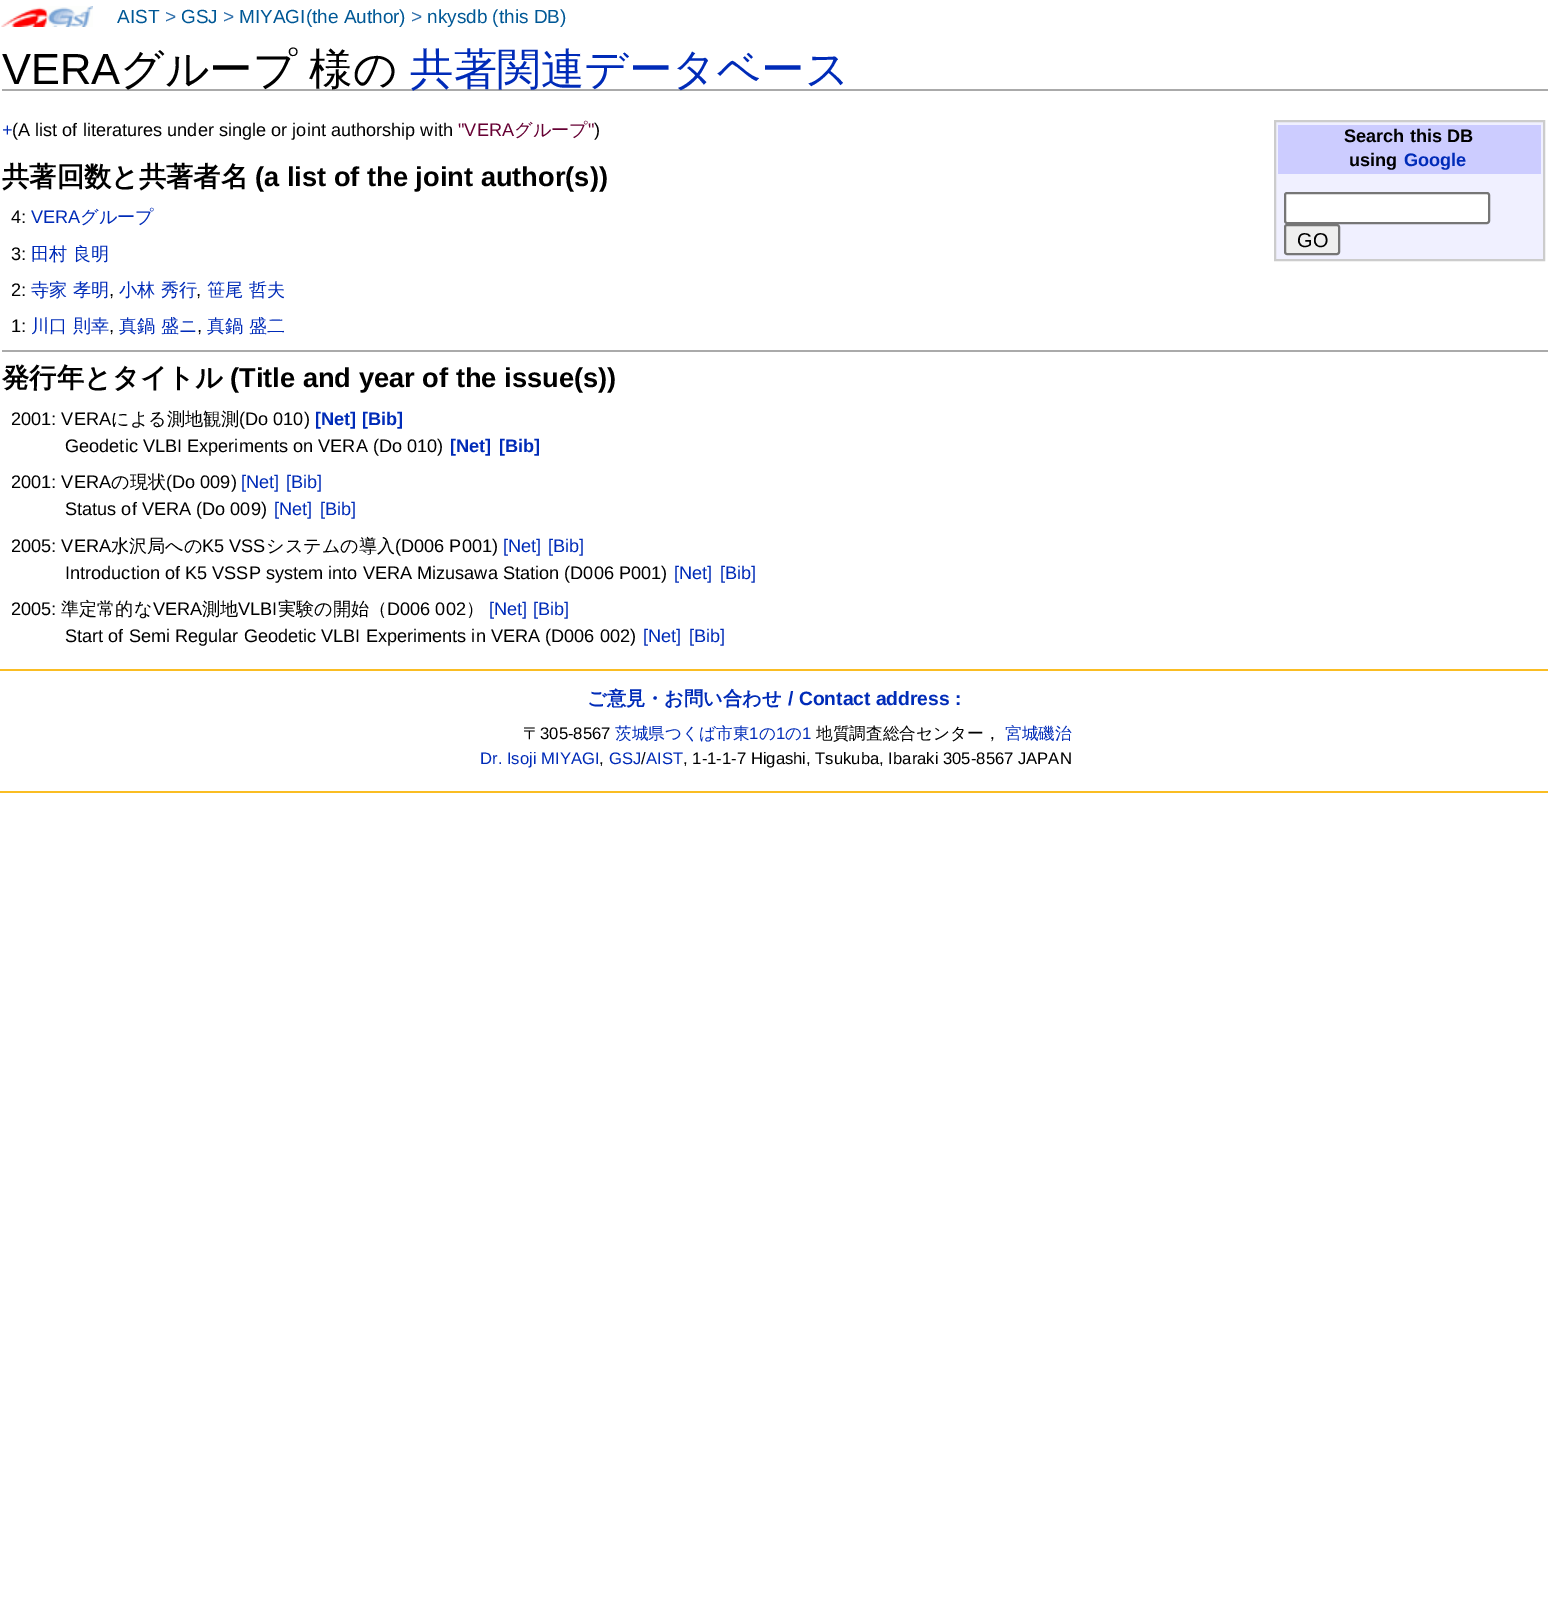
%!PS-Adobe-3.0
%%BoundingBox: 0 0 1548 1623
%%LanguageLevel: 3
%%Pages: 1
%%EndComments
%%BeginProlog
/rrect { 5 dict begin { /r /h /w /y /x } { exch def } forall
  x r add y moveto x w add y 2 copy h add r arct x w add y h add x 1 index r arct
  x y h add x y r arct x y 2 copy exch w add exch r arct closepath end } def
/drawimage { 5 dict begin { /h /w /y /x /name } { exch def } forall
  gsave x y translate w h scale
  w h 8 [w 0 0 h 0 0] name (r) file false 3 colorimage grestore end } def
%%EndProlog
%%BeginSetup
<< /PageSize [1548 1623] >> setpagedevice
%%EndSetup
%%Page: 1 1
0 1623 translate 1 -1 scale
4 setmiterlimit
1 setgray
0 0 1548 1623 rectfill
(images/1.raw) 1 6 92 21 drawimage
0.667 setgray
2 89 1546 2 rectfill
0.941 0.941 1 setrgbcolor
newpath 1275 121 moveto 1544 121 lineto 1544 260 lineto 1275 260 lineto closepath gsave fill grestore
0.8 setgray
2 setlinewidth
stroke
0.8 0.8 1 setrgbcolor
1278 125 263 49 rectfill
1 setgray
1285 193 204 30 2 rrect gsave fill grestore
0.463 setgray
stroke
0.937 setgray
1285 225 54 29 2 rrect gsave fill grestore
0.463 setgray
stroke
0.667 setgray
2 350 1546 2 rectfill
0.98 0.741 0.137 setrgbcolor
0 669 1548 2 rectfill
0 791 1548 2 rectfill
/LiberationSans-Regular [19 0 0 -19 0 0] selectfont
0 0.345 0.588 setrgbcolor
117 23 moveto (AIST) show
0.184 0.435 0.671 setrgbcolor
165 23 moveto (>) show
0 0.345 0.588 setrgbcolor
181 23 moveto (GSJ) show
0.184 0.435 0.671 setrgbcolor
223 23 moveto (>) show
0 0.345 0.588 setrgbcolor
239 23 moveto (MIYAGI\(the Author\)) show
0.184 0.435 0.671 setrgbcolor
411 23 moveto (>) show
0 0.345 0.588 setrgbcolor
427 23 moveto (nkysdb \(this DB\)) show
/LiberationSans-Regular [43.5 0 0 -43.5 0 0] selectfont
0 setgray
2 84 moveto (VERA) show
/WenQuanYiZenHei-Medium [43.5 0 0 -43.5 0 0] selectfont
120 84 moveto -1 0 32 (グループ 様の) widthshow
0 0.169 0.722 setrgbcolor
410 84 moveto (共著関連データベース) show
/LiberationSans-Regular [18.15 0 0 -18.15 0 0] selectfont
2 136 moveto (+) show
0 setgray
12 136 moveto (\(A list of literatures under single or joint authorship with) show
0.4 0 0.2 setrgbcolor
458 136 moveto ("VERA) show
/WenQuanYiZenHei-Medium [18.15 0 0 -18.15 0 0] selectfont
514 136 moveto (グループ) show
/LiberationSans-Regular [18.15 0 0 -18.15 0 0] selectfont
588 136 moveto (") show
0 setgray
594 136 moveto (\)) show
/LiberationSans-Bold [18.15 0 0 -18.15 0 0] selectfont
1344 142 moveto (Search this DB) show
1349 166 moveto (using) show
0 0.169 0.722 setrgbcolor
1404 166 moveto (Google) show
/LiberationSans-Regular [20 0 0 -20 0 0] selectfont
0 setgray
1297 247 moveto (GO) show
/WenQuanYiZenHei-Bold [27.25 0 0 -27.25 0 0] selectfont
2 186 moveto (共著回数と共著者名) show
/LiberationSans-Bold [27.25 0 0 -27.25 0 0] selectfont
255 186 moveto (\(a list of the joint author\(s\)\)) show
/LiberationSans-Regular [18.15 0 0 -18.15 0 0] selectfont
11 223 moveto (4:) show
0 0.169 0.722 setrgbcolor
31 223 moveto (VERA) show
/WenQuanYiZenHei-Medium [18.15 0 0 -18.15 0 0] selectfont
80 223 moveto (グループ) show
/LiberationSans-Regular [18.15 0 0 -18.15 0 0] selectfont
0 setgray
11 260 moveto (3:) show
/WenQuanYiZenHei-Medium [18.15 0 0 -18.15 0 0] selectfont
0 0.169 0.722 setrgbcolor
31 260 moveto (田村 良明) show
/LiberationSans-Regular [18.15 0 0 -18.15 0 0] selectfont
0 setgray
11 296 moveto (2:) show
/WenQuanYiZenHei-Medium [18.15 0 0 -18.15 0 0] selectfont
0 0.169 0.722 setrgbcolor
31 296 moveto (寺家 孝明) show
119 296 moveto (小林 秀行) show
207 296 moveto (笹尾 哲夫) show
/LiberationSans-Regular [18.15 0 0 -18.15 0 0] selectfont
0 setgray
109 296 moveto (,) show
196 296 moveto (,) show
11 332 moveto (1:) show
/WenQuanYiZenHei-Medium [18.15 0 0 -18.15 0 0] selectfont
0 0.169 0.722 setrgbcolor
31 332 moveto (川口 則幸) show
119 332 moveto (真鍋 盛ニ) show
207 332 moveto (真鍋 盛二) show
/LiberationSans-Regular [18.15 0 0 -18.15 0 0] selectfont
0 setgray
109 332 moveto (,) show
197 332 moveto (,) show
/WenQuanYiZenHei-Bold [27.25 0 0 -27.25 0 0] selectfont
2 387 moveto (発行年とタイトル) show
/LiberationSans-Bold [27.25 0 0 -27.25 0 0] selectfont
230 387 moveto (\(Title and year of the issue\(s\)\)) show
/LiberationSans-Regular [18.15 0 0 -18.15 0 0] selectfont
11 425 moveto (2001: VERA) show
/WenQuanYiZenHei-Medium [18.15 0 0 -18.15 0 0] selectfont
111 425 moveto (による測地観測) show
/LiberationSans-Regular [18.15 0 0 -18.15 0 0] selectfont
239 425 moveto (\(Do 010\)) show
/LiberationSans-Bold [18.15 0 0 -18.15 0 0] selectfont
0 0.169 0.722 setrgbcolor
315 425 moveto ([Net]) show
362 425 moveto ([Bib]) show
/LiberationSans-Regular [18.15 0 0 -18.15 0 0] selectfont
0 setgray
65 452 moveto (Geodetic VLBI Experiments on VERA \(Do 010\)) show
/LiberationSans-Bold [18.15 0 0 -18.15 0 0] selectfont
0 0.169 0.722 setrgbcolor
450 452 moveto ([Net]) show
499 452 moveto ([Bib]) show
/LiberationSans-Regular [18.15 0 0 -18.15 0 0] selectfont
0 setgray
11 488 moveto (2001: VERA) show
/WenQuanYiZenHei-Medium [18.15 0 0 -18.15 0 0] selectfont
111 488 moveto (の現状) show
/LiberationSans-Regular [18.15 0 0 -18.15 0 0] selectfont
166 488 moveto (\(Do 009\)) show
0 0.169 0.722 setrgbcolor
241 488 moveto ([Net]) show
286 488 moveto ([Bib]) show
0 setgray
65 515 moveto (Status of VERA \(Do 009\)) show
0 0.169 0.722 setrgbcolor
274 515 moveto ([Net]) show
320 515 moveto ([Bib]) show
0 setgray
11 552 moveto (2005: VERA) show
/WenQuanYiZenHei-Medium [18.15 0 0 -18.15 0 0] selectfont
111 552 moveto (水沢局への) show
/LiberationSans-Regular [18.15 0 0 -18.15 0 0] selectfont
202 552 moveto (K5 VSS) show
/WenQuanYiZenHei-Medium [18.15 0 0 -18.15 0 0] selectfont
266 552 moveto (システムの導入) show
/LiberationSans-Regular [18.15 0 0 -18.15 0 0] selectfont
395 552 moveto (\(D006 P001\)) show
0 0.169 0.722 setrgbcolor
503 552 moveto ([Net]) show
548 552 moveto ([Bib]) show
0 setgray
65 579 moveto (Introduction of K5 VSSP system into VERA Mizusawa Station \(D006 P001\)) show
0 0.169 0.722 setrgbcolor
674 579 moveto ([Net]) show
720 579 moveto ([Bib]) show
0 setgray
11 615 moveto (2005:) show
/WenQuanYiZenHei-Medium [18.15 0 0 -18.15 0 0] selectfont
61 615 moveto (準定常的な) show
/LiberationSans-Regular [18.15 0 0 -18.15 0 0] selectfont
153 615 moveto (VERA) show
/WenQuanYiZenHei-Medium [18.15 0 0 -18.15 0 0] selectfont
202 615 moveto (測地) show
/LiberationSans-Regular [18.15 0 0 -18.15 0 0] selectfont
238 615 moveto (VLBI) show
/WenQuanYiZenHei-Medium [18.15 0 0 -18.15 0 0] selectfont
278 615 moveto (実験の開始（) show
/LiberationSans-Regular [18.15 0 0 -18.15 0 0] selectfont
387 615 moveto (D006 002) show
/WenQuanYiZenHei-Medium [18.15 0 0 -18.15 0 0] selectfont
466 615 moveto (）) show
/LiberationSans-Regular [18.15 0 0 -18.15 0 0] selectfont
0 0.169 0.722 setrgbcolor
489 615 moveto ([Net]) show
533 615 moveto ([Bib]) show
0 setgray
65 642 moveto (Start of Semi Regular Geodetic VLBI Experiments in VERA \(D006 002\)) show
0 0.169 0.722 setrgbcolor
643 642 moveto ([Net]) show
689 642 moveto ([Bib]) show
/WenQuanYiZenHei-Bold [19.25 0 0 -19.25 0 0] selectfont
587 705 moveto (ご意見・お問い合わせ) show
/LiberationSans-Bold [19.25 0 0 -19.25 0 0] selectfont
788 705 moveto (/ Contact address :) show
/WenQuanYiZenHei-Medium [16.65 0 0 -16.65 0 0] selectfont
0 setgray
523 739 moveto (〒) show
/LiberationSans-Regular [16.65 0 0 -16.65 0 0] selectfont
540 739 moveto (305-8567) show
/WenQuanYiZenHei-Medium [16.65 0 0 -16.65 0 0] selectfont
0 0.169 0.722 setrgbcolor
615 739 moveto (茨城県つくば市東) show
/LiberationSans-Regular [16.65 0 0 -16.65 0 0] selectfont
749 739 moveto (1) show
/WenQuanYiZenHei-Medium [16.65 0 0 -16.65 0 0] selectfont
759 739 moveto (の) show
/LiberationSans-Regular [16.65 0 0 -16.65 0 0] selectfont
776 739 moveto (1) show
/WenQuanYiZenHei-Medium [16.65 0 0 -16.65 0 0] selectfont
785 739 moveto (の) show
/LiberationSans-Regular [16.65 0 0 -16.65 0 0] selectfont
802 739 moveto (1) show
/WenQuanYiZenHei-Medium [16.65 0 0 -16.65 0 0] selectfont
0 setgray
816 739 moveto (地質調査総合センター，) show
0 0.169 0.722 setrgbcolor
1005 739 moveto (宮城磯治) show
/LiberationSans-Regular [16.65 0 0 -16.65 0 0] selectfont
480 764 moveto (Dr. Isoji MIYAGI) show
0 setgray
599 764 moveto (,) show
0 0.169 0.722 setrgbcolor
609 764 moveto (GSJ) show
0 setgray
641 764 moveto (/) show
0 0.169 0.722 setrgbcolor
646 764 moveto (AIST) show
0 setgray
683 764 moveto (, 1-1-1-7 Higashi, Tsukuba, Ibaraki 305-8567 JAPAN) show
showpage
%%EOF
